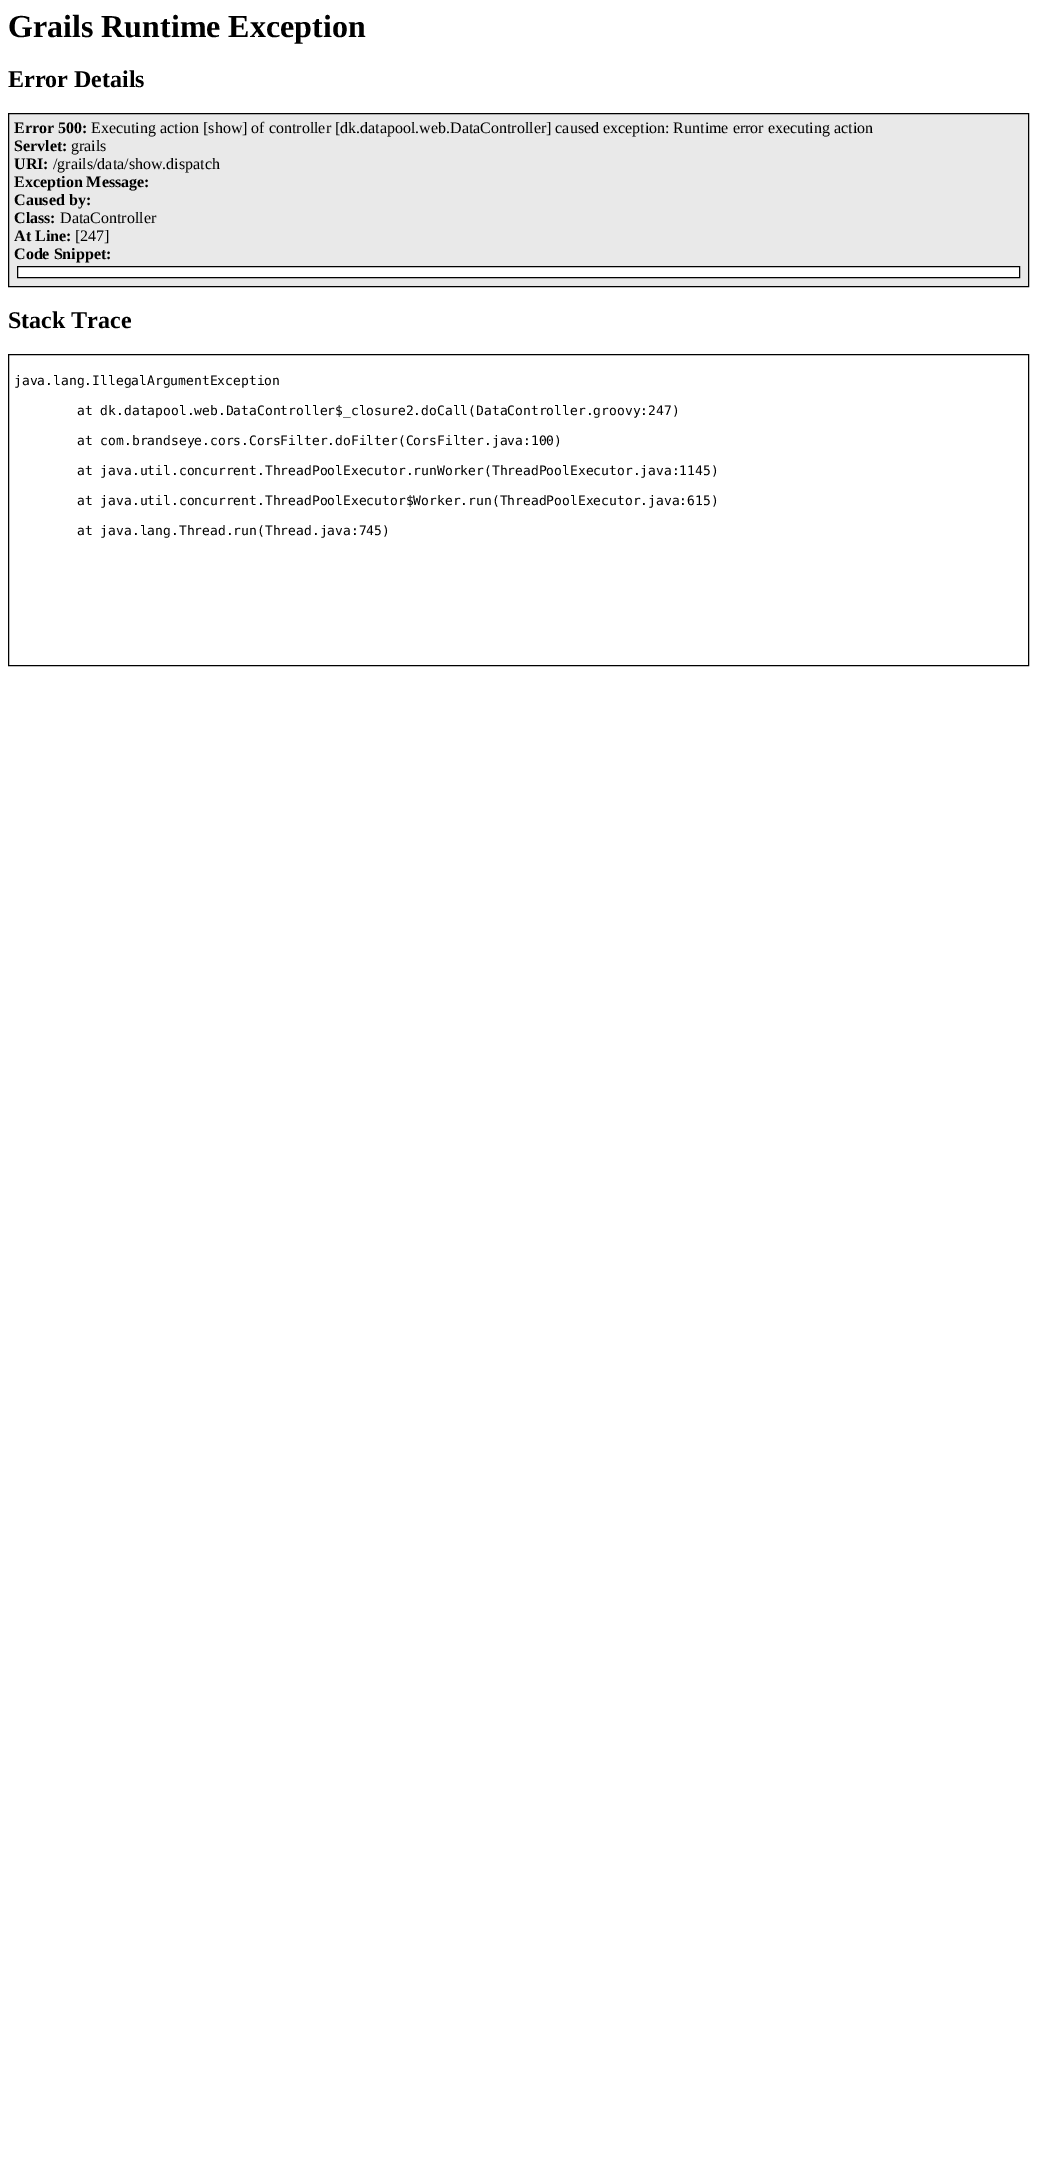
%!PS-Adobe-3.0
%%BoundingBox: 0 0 1037 2170
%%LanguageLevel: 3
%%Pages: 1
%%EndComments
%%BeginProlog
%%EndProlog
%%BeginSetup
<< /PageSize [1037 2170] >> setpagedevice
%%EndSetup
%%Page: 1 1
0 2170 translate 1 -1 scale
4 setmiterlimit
1 setgray
0 0 1037 2170 rectfill
0.914 setgray
newpath 8.5 113.5 moveto 1028.5 113.5 lineto 1028.5 286.5 lineto 8.5 286.5 lineto closepath gsave fill grestore
0 setgray
stroke
1 setgray
newpath 17.5 266.5 moveto 1019.5 266.5 lineto 1019.5 277.5 lineto 17.5 277.5 lineto closepath gsave fill grestore
0 setgray
stroke
8.5 354.5 1020 311 rectstroke
/LiberationSerif-Bold [32 0 0 -32 0 0] selectfont
8 37 moveto (Grails Runtime Exception) show
/LiberationSerif-Bold [24 0 0 -24 0 0] selectfont
8 87 moveto (Error Details) show
/LiberationSerif-Bold [16 0 0 -16 0 0] selectfont
14 133 moveto (Error 500:) show
/LiberationSerif-Regular [16 0 0 -16 0 0] selectfont
91 133 moveto (Executing action [show] of controller [dk.datapool.web.DataController] caused exception: Runtime error executing action) show
/LiberationSerif-Bold [16 0 0 -16 0 0] selectfont
14 151 moveto (Servlet:) show
/LiberationSerif-Regular [16 0 0 -16 0 0] selectfont
71 151 moveto (grails) show
/LiberationSerif-Bold [16 0 0 -16 0 0] selectfont
14 169 moveto (URI:) show
/LiberationSerif-Regular [16 0 0 -16 0 0] selectfont
53 169 moveto (/grails/data/show.dispatch) show
/LiberationSerif-Bold [16 0 0 -16 0 0] selectfont
14 187 moveto (Exception Message:) show
14 205 moveto (Caused by:) show
14 223 moveto (Class:) show
/LiberationSerif-Regular [16 0 0 -16 0 0] selectfont
60 223 moveto (DataController) show
/LiberationSerif-Bold [16 0 0 -16 0 0] selectfont
14 241 moveto (At Line:) show
/LiberationSerif-Regular [16 0 0 -16 0 0] selectfont
75 241 moveto ([247]) show
/LiberationSerif-Bold [16 0 0 -16 0 0] selectfont
14 259 moveto (Code Snippet:) show
/LiberationSerif-Bold [24 0 0 -24 0 0] selectfont
8 328 moveto (Stack Trace) show
/DejaVuSansMono-Regular [13 0 0 -13 0 0] selectfont
14 385 moveto (java.lang.IllegalArgumentException) show
77 415 moveto (at dk.datapool.web.DataController$_closure2.doCall\(DataController.groovy:247\)) show
77 445 moveto (at com.brandseye.cors.CorsFilter.doFilter\(CorsFilter.java:100\)) show
77 475 moveto (at java.util.concurrent.ThreadPoolExecutor.runWorker\(ThreadPoolExecutor.java:1145\)) show
77 505 moveto (at java.util.concurrent.ThreadPoolExecutor$Worker.run\(ThreadPoolExecutor.java:615\)) show
77 535 moveto (at java.lang.Thread.run\(Thread.java:745\)) show
showpage
%%EOF
